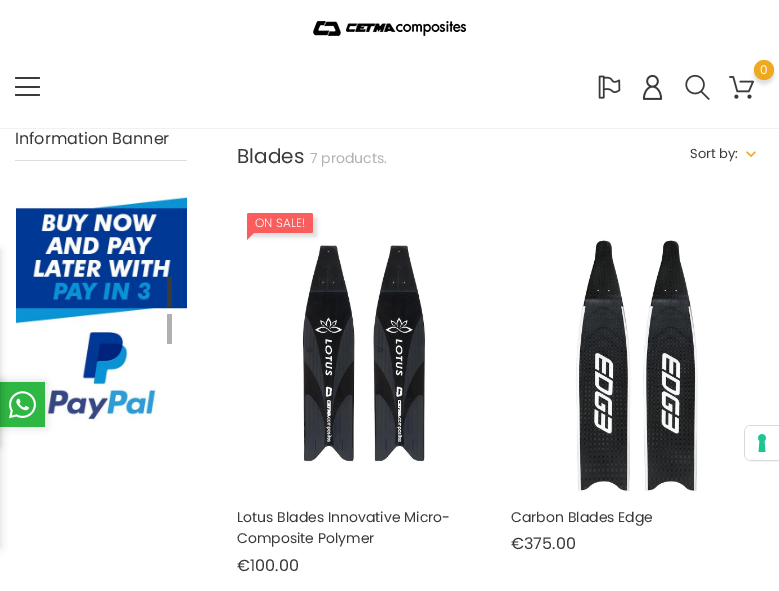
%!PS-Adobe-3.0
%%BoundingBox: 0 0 779 591
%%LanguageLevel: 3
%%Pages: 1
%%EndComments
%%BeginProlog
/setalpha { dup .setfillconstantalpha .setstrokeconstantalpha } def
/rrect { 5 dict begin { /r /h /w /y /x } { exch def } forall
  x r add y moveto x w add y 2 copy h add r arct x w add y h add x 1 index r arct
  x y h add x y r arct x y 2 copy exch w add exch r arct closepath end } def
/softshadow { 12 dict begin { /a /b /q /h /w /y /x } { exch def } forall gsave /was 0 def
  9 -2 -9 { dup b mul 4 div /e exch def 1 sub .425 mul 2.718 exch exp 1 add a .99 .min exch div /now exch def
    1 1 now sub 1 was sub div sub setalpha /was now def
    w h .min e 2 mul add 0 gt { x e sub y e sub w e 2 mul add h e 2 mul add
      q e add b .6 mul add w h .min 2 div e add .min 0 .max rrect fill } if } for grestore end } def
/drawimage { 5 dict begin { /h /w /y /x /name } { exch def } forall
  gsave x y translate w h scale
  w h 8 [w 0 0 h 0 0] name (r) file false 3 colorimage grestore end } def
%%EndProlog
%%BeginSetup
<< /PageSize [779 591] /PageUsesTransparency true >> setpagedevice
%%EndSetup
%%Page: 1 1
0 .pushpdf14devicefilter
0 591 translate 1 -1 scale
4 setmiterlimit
1 setgray
0 0 779 591 rectfill
0.945 0.945 0.941 setrgbcolor
0 128 779 1 rectfill
(images/1.raw) 313 21 153 15 drawimage
(images/2.raw) 729 76 25 23 drawimage
0 setgray
754 64 20 20 10 2 0.14 softshadow
0.933 0.663 0.125 setrgbcolor
newpath 764 70 10 0 360 arc closepath fill
(images/3.raw) 598 75 23 24 drawimage
(images/4.raw) 642 74 21 26 drawimage
(images/5.raw) 685 74 25 26 drawimage
0.227 setgray
15 77 25 2 1 rrect fill
15 86 25 2 1 rrect fill
15 94 25 2 1 rrect fill
(images/6.raw) 16 196 171 225 drawimage
0 setgray
0 382 45 45 0 4.5 0.15 softshadow
0.18 0.718 0.263 setrgbcolor
0 382 45 45 rectfill
(images/10.raw) 9 391 27 28 drawimage
0 setgray
-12 250 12 196 0 4 0.16 softshadow
0.871 setgray
15 160 172 1 rectfill
0.227 setgray
167 277 5 30 rectfill
0.69 setgray
167 314 5 30 rectfill
(images/7.raw) 746 151 10 7 drawimage
(images/8.raw) 237 203 254 296 drawimage
0 setgray
251 217 66 20 2 2 0.14 softshadow
0.976 0.365 0.365 setrgbcolor
247 213 66 20 2 rrect fill
newpath 247 228 moveto 259 228 lineto 253 234 lineto closepath fill
newpath 247 240 moveto 247 228 lineto 253 234 lineto closepath fill
(images/9.raw) 511 203 253 296 drawimage
0 setgray
-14 382 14 166 0 4.5 0.15 softshadow
0.851 setgray
newpath 751 425.5 moveto 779.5 425.5 lineto 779.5 460.5 lineto 751 460.5 lineto 747.5 460.5 744.5 457.5 744.5 454 curveto 744.5 432 lineto 744.5 428.5 747.5 425.5 751 425.5 curveto closepath stroke
1 setgray
newpath 751 426 moveto 779 426 lineto 779 460 lineto 751 460 lineto 747.5 460 745 457.5 745 454 curveto 745 432 lineto 745 428.5 747.5 426 751 426 curveto closepath fill
(images/11.raw) 758 434 8 18 drawimage
/Poppins-Regular [12 0 0 -12 0 0] selectfont
760 74 moveto (0) show
/Poppins-Regular [16 0 0 -16 0 0] selectfont
0.227 setgray
15 144 moveto (Information Banner) show
/Poppins-Regular [20 0 0 -20 0 0] selectfont
237 163 moveto (Blades) show
/Poppins-Regular [14 0 0 -14 0 0] selectfont
0.698 setgray
310 163 moveto (7 products.) show
/Poppins-Regular [13 0 0 -13 0 0] selectfont
0.227 setgray
690 158 moveto (Sort by:) show
/Poppins-Light [12 0 0 -12 0 0] selectfont
1 setgray
255 227 moveto (ON SALE!) show
/Poppins-Regular [14 0 0 -14 0 0] selectfont
0.227 setgray
237 522 moveto (Lotus Blades Innovative Micro-) show
237 543 moveto (Composite Polymer) show
/Poppins-Regular [16 0 0 -16 0 0] selectfont
237 571 moveto (€100.00) show
/Poppins-Regular [14 0 0 -14 0 0] selectfont
511 522 moveto (Carbon Blades Edge) show
/Poppins-Regular [16 0 0 -16 0 0] selectfont
511 549 moveto (€375.00) show
.poppdf14devicefilter showpage
%%EOF
